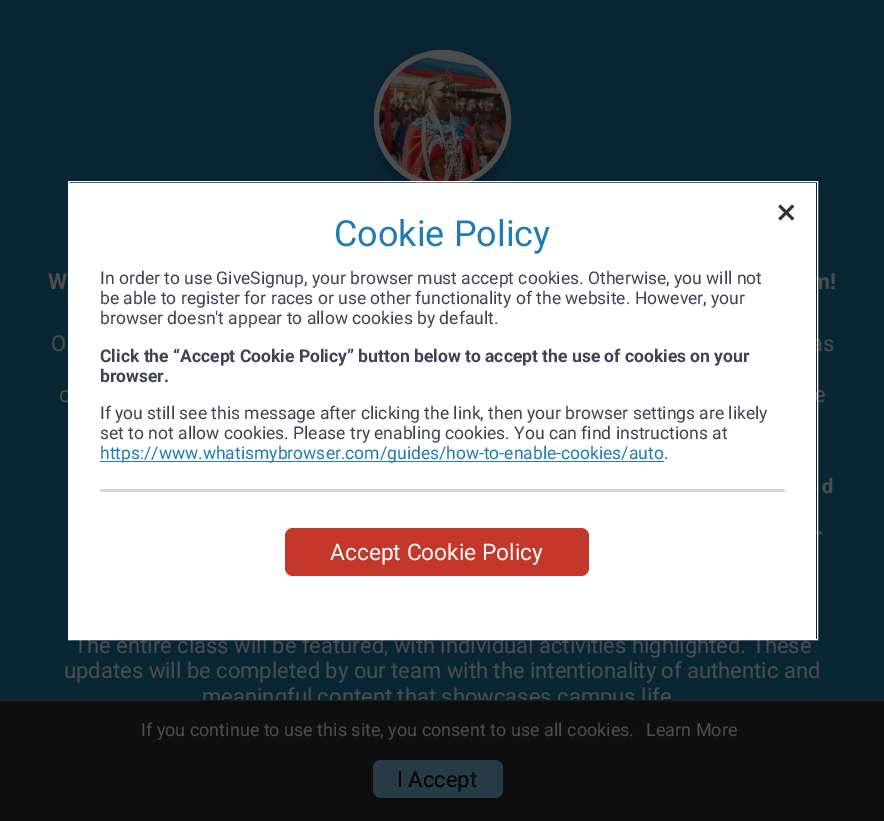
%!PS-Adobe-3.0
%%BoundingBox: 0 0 884 821
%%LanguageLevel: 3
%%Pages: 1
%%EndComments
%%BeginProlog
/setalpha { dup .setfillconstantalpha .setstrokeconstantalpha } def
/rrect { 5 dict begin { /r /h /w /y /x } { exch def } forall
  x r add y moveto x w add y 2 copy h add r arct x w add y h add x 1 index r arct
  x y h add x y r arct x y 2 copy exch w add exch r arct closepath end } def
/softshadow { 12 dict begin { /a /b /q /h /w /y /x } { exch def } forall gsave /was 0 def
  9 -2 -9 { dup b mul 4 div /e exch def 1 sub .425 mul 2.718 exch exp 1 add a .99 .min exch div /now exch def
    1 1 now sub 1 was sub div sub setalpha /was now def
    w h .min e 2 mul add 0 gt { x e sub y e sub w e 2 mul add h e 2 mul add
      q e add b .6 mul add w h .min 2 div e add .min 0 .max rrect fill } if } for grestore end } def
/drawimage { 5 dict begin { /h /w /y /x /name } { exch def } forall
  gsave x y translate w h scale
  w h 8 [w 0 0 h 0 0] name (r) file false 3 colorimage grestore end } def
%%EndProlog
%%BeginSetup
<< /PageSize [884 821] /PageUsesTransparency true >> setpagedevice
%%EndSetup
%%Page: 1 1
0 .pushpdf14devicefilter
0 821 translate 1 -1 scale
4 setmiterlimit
0.035 0.149 0.208 setrgbcolor
0 0 884 821 rectfill
0 setgray
374 58 137 137 68.5 12.5 0.19 softshadow
0.302 setgray
374 50 137 138 68.5 rrect fill
(images/2.raw) 379 57 127 126 drawimage
5 setlinewidth
376.5 52.5 132 133 66 rrect stroke
/Roboto-Bold [22 0 0 -22 0 0] selectfont
48 289 moveto (W) show
811 289 moveto (m!) show
/Roboto-Regular [22 0 0 -22 0 0] selectfont
51 351 moveto (O) show
811 351 moveto (as) show
59 402 moveto (c) show
814 402 moveto (e) show
/Roboto-Bold [20 0 0 -20 0 0] selectfont
822 493 moveto (d) show
815 539 moveto (-) show
/Roboto-Regular [22 0 0 -22 0 0] selectfont
74 653 moveto (The entire class will be featured, with individual activities highlighted. These) show
1 setgray
1 setlinewidth
68.5 181.5 749 458 rectstroke
69 183 747 456 rectfill
(images/1.raw) 778 204 17 17 drawimage
0.827 0.859 0.875 setrgbcolor
100 489 685 3 rectfill
0.769 0.216 0.169 setrgbcolor
285 528 304 48 8 rrect fill
/Roboto-Regular [22.75 0 0 -22.75 0 0] selectfont
1 setgray
330 560 moveto (Accept Cookie Policy) show
/Roboto-Regular [17.5 0 0 -17.5 0 0] selectfont
0.247 0.259 0.349 setrgbcolor
664 459 moveto (.) show
0.122 0.49 0.698 setrgbcolor
100 461 564 1 rectfill
100 459 moveto (https://www.whatismybrowser.com/guides/how-to-enable-cookies/auto) show
0.247 0.259 0.349 setrgbcolor
100 439 moveto (set to not allow cookies. Please try enabling cookies. You can find instructions at) show
100 419 moveto (If you still see this message after clicking the link, then your browser settings are likely) show
/Roboto-Bold [17.5 0 0 -17.5 0 0] selectfont
100 382 moveto (browser.) show
100 362 moveto (Click the “Accept Cookie Policy” button below to accept the use of cookies on your) show
/Roboto-Regular [17.5 0 0 -17.5 0 0] selectfont
100 324 moveto (browser doesn't appear to allow cookies by default.) show
100 304 moveto (be able to register for races or use other functionality of the website. However, your) show
100 284 moveto (In order to use GiveSignup, your browser must accept cookies. Otherwise, you will not) show
/Roboto-Regular [36 0 0 -36 0 0] selectfont
0.122 0.49 0.698 setrgbcolor
334 246 moveto (Cookie Policy) show
/Roboto-Regular [22 0 0 -22 0 0] selectfont
0.302 setgray
64 678 moveto (updates will be completed by our team with the intentionality of authentic and) show
202 704 moveto (meaningful content that showcases campus life) show
0.059 setgray
0 701 884 120 rectfill
0.122 setgray
0 700 884 1 rectfill
/Roboto-Regular [18 0 0 -18 0 0] selectfont
0.302 setgray
141 736 moveto (If you continue to use this site, you consent to use all cookies.) show
646 736 moveto (Learn More) show
0.149 0.231 0.275 setrgbcolor
373 760 130 38 8 rrect fill
/Roboto-Regular [22 0 0 -22 0 0] selectfont
0 setgray
397 787 moveto (I Accept) show
.poppdf14devicefilter showpage
%%EOF
